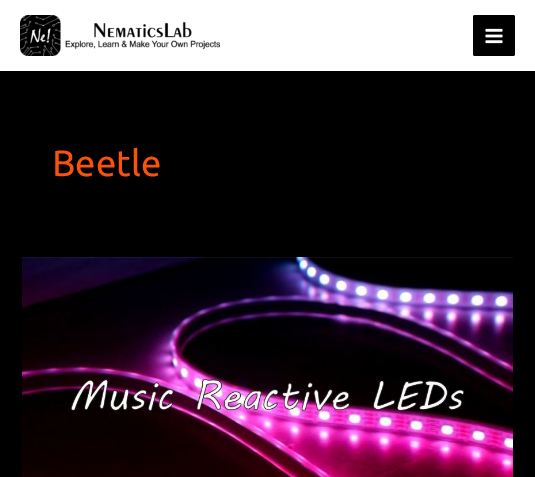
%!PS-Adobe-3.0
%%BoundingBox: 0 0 535 477
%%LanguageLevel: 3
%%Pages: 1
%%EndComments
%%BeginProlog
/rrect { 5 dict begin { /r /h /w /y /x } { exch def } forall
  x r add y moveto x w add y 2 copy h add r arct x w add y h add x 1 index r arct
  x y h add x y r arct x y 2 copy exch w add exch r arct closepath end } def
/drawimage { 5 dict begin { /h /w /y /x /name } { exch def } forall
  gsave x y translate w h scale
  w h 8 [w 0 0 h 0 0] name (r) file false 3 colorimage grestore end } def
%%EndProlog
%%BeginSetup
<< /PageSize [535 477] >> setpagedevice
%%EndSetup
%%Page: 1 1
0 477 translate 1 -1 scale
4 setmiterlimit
0 setgray
0 0 535 477 rectfill
1 setgray
0 0 535 71 rectfill
(images/1.raw) 20 15 200 41 drawimage
0 setgray
473 15 42 41 2 rrect fill
(images/2.raw) 485 28 18 16 drawimage
(images/3.raw) 22 257 491 220 drawimage
/Ubuntu-Regular [36.5 0 0 -36.5 0 0] selectfont
0.976 0.322 0.043 setrgbcolor
52 176 moveto (Beetle) show
showpage
%%EOF
